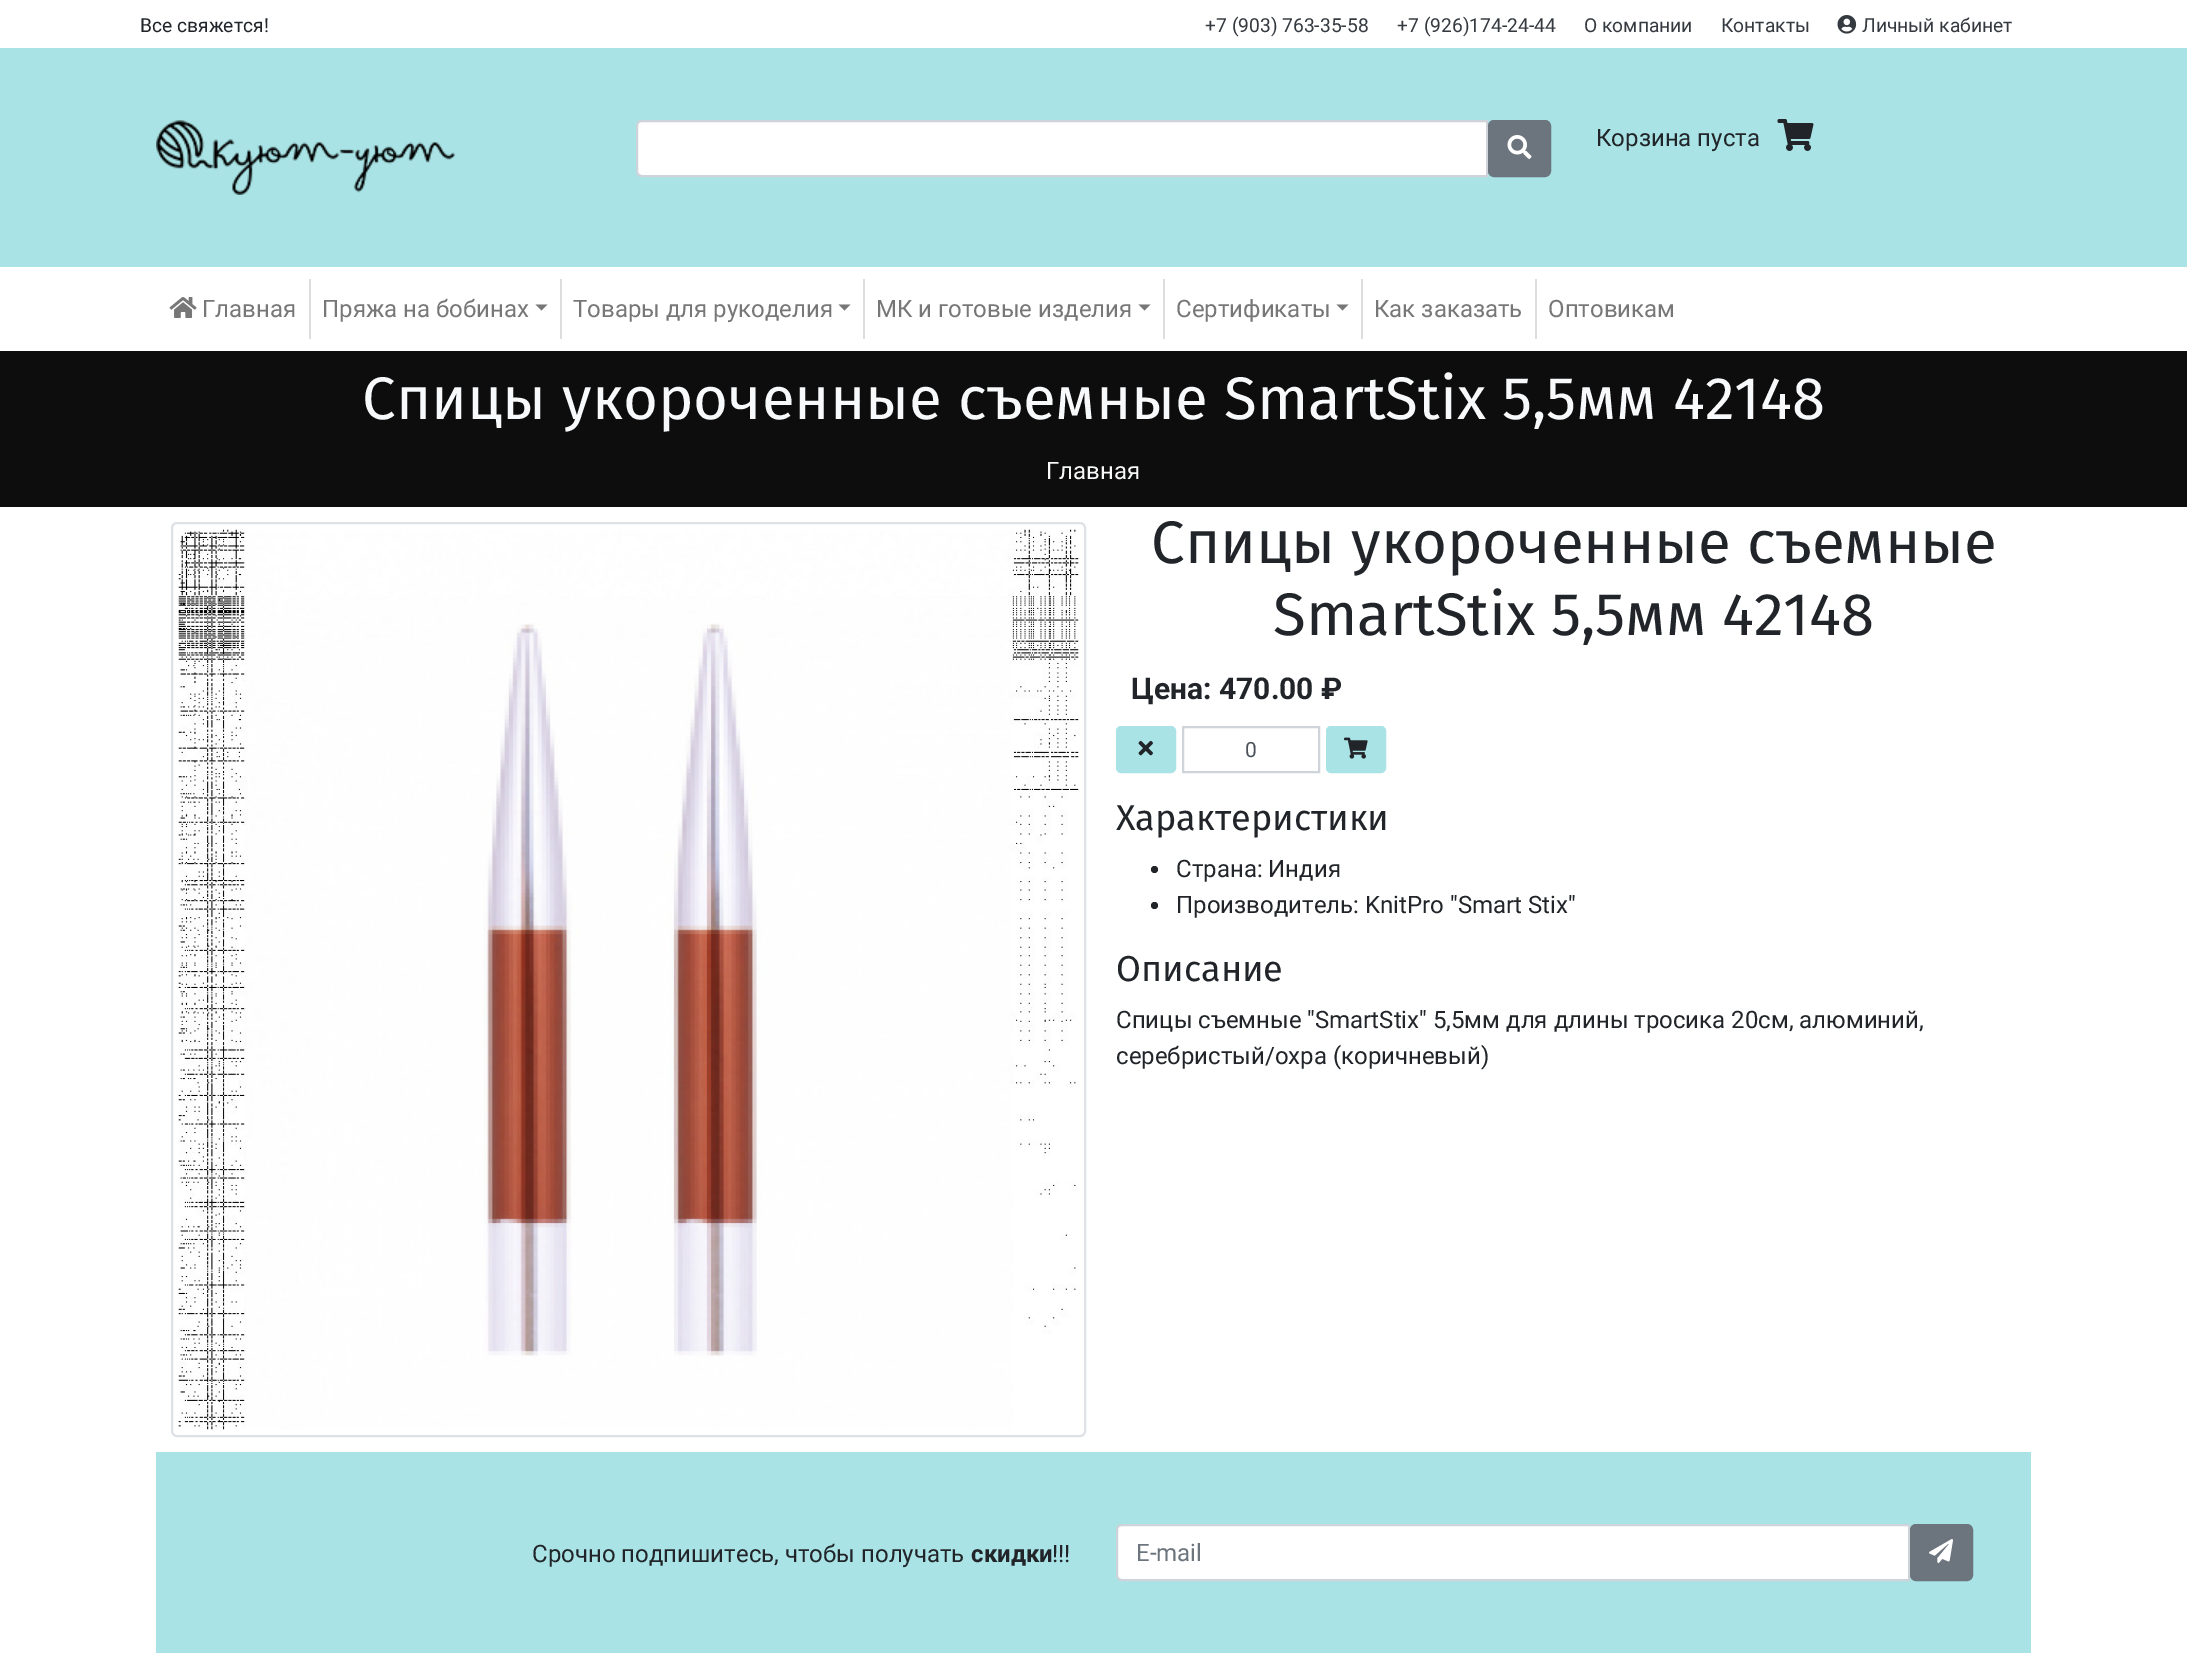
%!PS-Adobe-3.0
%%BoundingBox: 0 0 2187 1664
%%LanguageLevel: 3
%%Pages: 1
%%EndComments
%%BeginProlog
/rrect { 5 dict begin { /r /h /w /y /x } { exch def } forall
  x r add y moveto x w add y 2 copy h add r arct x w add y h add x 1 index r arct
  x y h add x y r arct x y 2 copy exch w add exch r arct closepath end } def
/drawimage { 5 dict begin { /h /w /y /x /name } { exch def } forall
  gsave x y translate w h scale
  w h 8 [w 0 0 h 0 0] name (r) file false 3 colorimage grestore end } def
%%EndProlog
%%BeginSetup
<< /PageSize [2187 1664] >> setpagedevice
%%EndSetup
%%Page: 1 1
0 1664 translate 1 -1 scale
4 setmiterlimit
1 setgray
0 0 2187 1664 rectfill
(images/1.raw) 1837 15 20 19 drawimage
0.663 0.89 0.898 setrgbcolor
0 48 2187 219 rectfill
(images/2.raw) 156 120 299 75 drawimage
1 setgray
newpath 642 121 moveto 1487 121 lineto 1487 176 lineto 642 176 lineto 639 176 637 174 637 171 curveto 637 126 lineto 637 123 639 121 642 121 curveto closepath gsave fill grestore
0.808 0.831 0.855 setrgbcolor
2 setlinewidth
stroke
0.424 0.459 0.49 setrgbcolor
1489 121 61 55 5 rrect gsave fill grestore
stroke
(images/3.raw) 1507 135 25 24 drawimage
(images/4.raw) 1777 119 37 32 drawimage
(images/5.raw) 169 297 28 21 drawimage
0.867 setgray
309 279 2 60 rectfill
0.467 setgray
newpath 535.5 304.5 moveto 547.5 304.5 lineto 541.5 310.5 lineto closepath fill
0.867 setgray
560 279 2 60 rectfill
0.467 setgray
newpath 838.5 304.5 moveto 850.5 304.5 lineto 844.5 310.5 lineto closepath fill
0.867 setgray
863 279 2 60 rectfill
0.467 setgray
newpath 1138.5 304.5 moveto 1150.5 304.5 lineto 1144.5 310.5 lineto closepath fill
0.867 setgray
1163 279 2 60 rectfill
0.467 setgray
newpath 1336.5 304.5 moveto 1348.5 304.5 lineto 1342.5 310.5 lineto closepath fill
0.867 setgray
1361 279 2 60 rectfill
1535 279 2 60 rectfill
0.051 setgray
0 351 2187 156 rectfill
0.871 0.886 0.902 setrgbcolor
172 523 913 913 5 rrect stroke
(images/6.raw) 178 529 901 901 drawimage
0.663 0.89 0.898 setrgbcolor
1117 727 58 45 4 rrect gsave fill grestore
stroke
(images/7.raw) 1138 740 15 16 drawimage
0.808 0.831 0.855 setrgbcolor
1183 727 136 45 rectstroke
0.663 0.89 0.898 setrgbcolor
1327 727 58 45 4 rrect gsave fill grestore
stroke
(images/8.raw) 1344 737 24 22 drawimage
0.129 0.145 0.161 setrgbcolor
newpath 1154.5 869.5 3.5 0 360 arc closepath fill
newpath 1154.5 905.5 3.5 0 360 arc closepath fill
0.663 0.89 0.898 setrgbcolor
156 1452 1875 201 rectfill
1 setgray
newpath 1122 1525 moveto 1909 1525 lineto 1909 1580 lineto 1122 1580 lineto 1119 1580 1117 1578 1117 1575 curveto 1117 1530 lineto 1117 1527 1119 1525 1122 1525 curveto closepath gsave fill grestore
0.808 0.831 0.855 setrgbcolor
stroke
0.424 0.459 0.49 setrgbcolor
1911 1525 61 55 5 rrect gsave fill grestore
stroke
(images/9.raw) 1929 1539 24 24 drawimage
/Roboto-Regular [19.25 0 0 -19.25 0 0] selectfont
0.129 0.145 0.161 setrgbcolor
140 32 moveto (Все свяжется!) show
0.204 0.227 0.251 setrgbcolor
1205 32 moveto (+7 \(903\) 763-35-58) show
1397 32 moveto (+7 \(926\)174-24-44) show
1584 32 moveto (О компании) show
1721 32 moveto (Контакты) show
1862 32 moveto (Личный кабинет) show
/Roboto-Regular [24 0 0 -24 0 0] selectfont
0.129 0.145 0.161 setrgbcolor
1596 146 moveto (Корзина пуста) show
0.467 setgray
202 317 moveto (Главная) show
322 317 moveto (Пряжа на бобинах) show
573 317 moveto (Товары для рукоделия) show
876 317 moveto (МК и готовые изделия) show
1176 317 moveto (Cертификаты) show
1374 317 moveto (Как заказать) show
1548 317 moveto (Оптовикам) show
/FiraSans-Regular [60 0 0 -60 0 0] selectfont
0.973 0.976 0.98 setrgbcolor
362 419 moveto (Спицы укороченные съемные SmartStix 5,5мм 42148) show
/Roboto-Regular [24 0 0 -24 0 0] selectfont
1046 479 moveto (Главная) show
/FiraSans-Regular [60 0 0 -60 0 0] selectfont
0.129 0.145 0.161 setrgbcolor
1151 563 moveto (Спицы укороченные съемные) show
1273 635 moveto (SmartStix 5,5мм 42148) show
/Roboto-Bold [30 0 0 -30 0 0] selectfont
1131 699 moveto (Цена: 470.00 ₽) show
/Roboto-Regular [21 0 0 -21 0 0] selectfont
0.286 0.314 0.341 setrgbcolor
1245 757 moveto (0) show
/FiraSans-Regular [36 0 0 -36 0 0] selectfont
0.129 0.145 0.161 setrgbcolor
1116 830 moveto (Характеристики) show
/Roboto-Regular [24 0 0 -24 0 0] selectfont
1176 877 moveto (Страна: Индия) show
1176 913 moveto (Производитель: KnitPro "Smart Stix") show
/FiraSans-Regular [36 0 0 -36 0 0] selectfont
1116 981 moveto (Описание) show
/Roboto-Regular [24 0 0 -24 0 0] selectfont
1116 1028 moveto (Спицы съемные "SmartStix" 5,5мм для длины тросика 20см, алюминий,) show
1116 1064 moveto (серебристый/охра \(коричневый\)) show
532 1562 moveto (Срочно подпишитесь, чтобы получать) show
/Roboto-Bold [24 0 0 -24 0 0] selectfont
971 1562 moveto (скидки) show
/Roboto-Regular [24 0 0 -24 0 0] selectfont
1052 1562 moveto (!!!) show
0.424 0.459 0.49 setrgbcolor
1136 1561 moveto (E-mail) show
showpage
%%EOF
